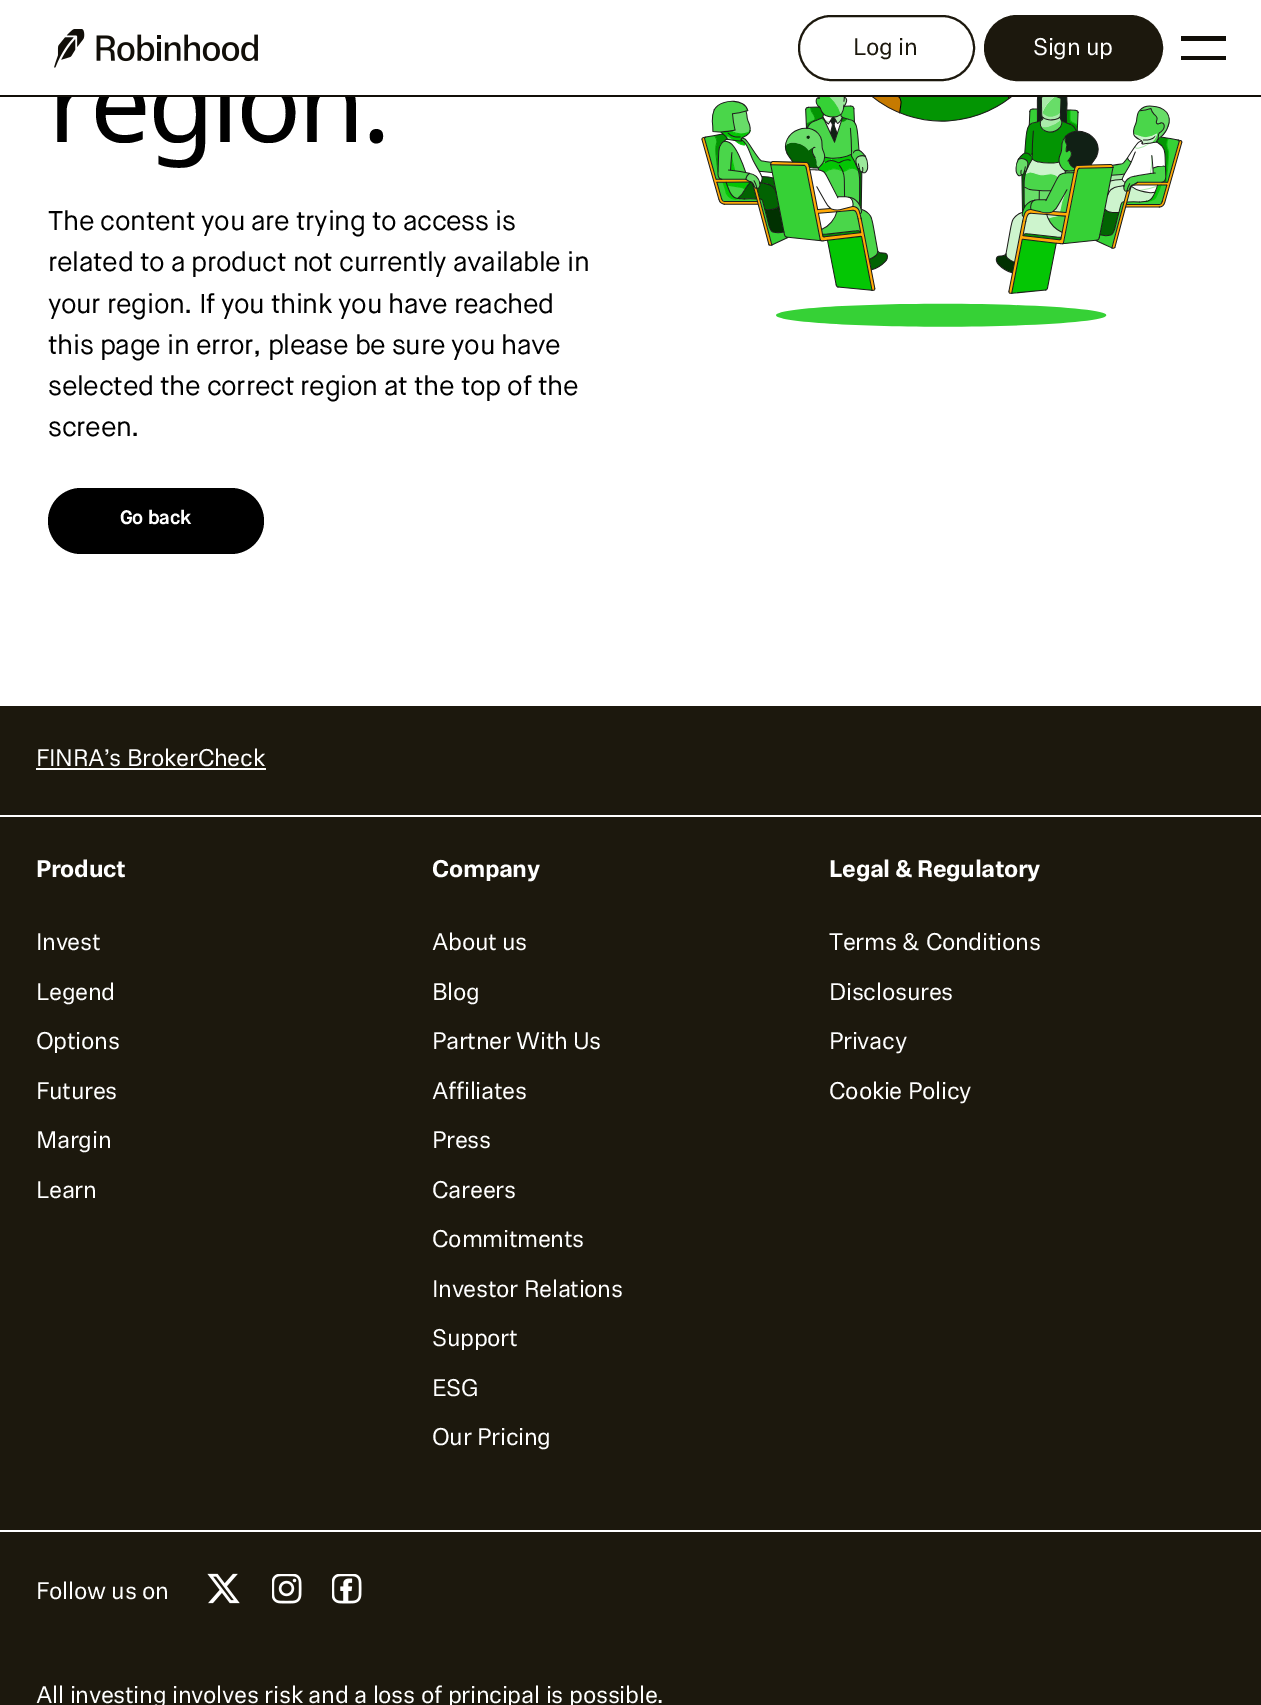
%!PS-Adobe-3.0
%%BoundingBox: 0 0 1261 1705
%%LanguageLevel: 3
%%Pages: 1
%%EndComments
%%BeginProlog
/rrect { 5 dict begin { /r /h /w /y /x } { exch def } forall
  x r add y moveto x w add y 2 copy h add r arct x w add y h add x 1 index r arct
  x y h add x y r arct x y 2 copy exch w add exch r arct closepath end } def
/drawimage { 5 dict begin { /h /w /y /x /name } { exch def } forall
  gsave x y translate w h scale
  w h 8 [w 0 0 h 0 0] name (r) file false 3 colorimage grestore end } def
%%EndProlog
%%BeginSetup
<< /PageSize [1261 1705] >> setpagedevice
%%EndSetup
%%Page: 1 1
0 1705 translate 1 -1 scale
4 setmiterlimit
1 setgray
0 0 1261 1705 rectfill
0.11 0.094 0.051 setrgbcolor
2 setlinewidth
799 16 175 64 32 rrect stroke
985 16 177 64 32 rrect gsave fill grestore
stroke
0.067 0.055 0.031 setrgbcolor
1181 36 45 5 rectfill
1181 56 45 4 rectfill
0 setgray
48 488 216 66 33 rrect fill
(images/2.raw) 701 97 482 230 drawimage
0.11 0.094 0.051 setrgbcolor
0 706 1261 999 rectfill
1 setgray
0 815 1261 2 rectfill
36 768 230 2 rectfill
0 1530 1261 2 rectfill
(images/3.raw) 207 1573 33 31 drawimage
(images/4.raw) 272 1574 30 30 drawimage
(images/5.raw) 332 1574 30 30 drawimage
/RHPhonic-Regular [24 0 0 -24 0 0] selectfont
0.11 0.094 0.051 setrgbcolor
853 55 moveto -0.38 0 (Log in) ashow
1 setgray
1033 55 moveto -0.38 0 (Sign up) ashow
/NotoSans-Regular [108 0 0 -108 0 0] selectfont
0 setgray
48 142 moveto -3 0 (region.) ashow
1 setgray
57 62 298 33 rectfill
(images/1.raw) 54 29 204 39 drawimage
0.067 0.055 0.031 setrgbcolor
0 95 1261 2 rectfill
/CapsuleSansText-Regular [27 0 0 -27 0 0] selectfont
0 setgray
48 230 moveto -0.38 0 (The content you are trying to access is) ashow
48 271 moveto -0.38 0 (related to a product not currently available in) ashow
48 313 moveto -0.38 0 (your region. If you think you have reached) ashow
48 354 moveto -0.38 0 (this page in error, please be sure you have) ashow
48 395 moveto -0.38 0 (selected the correct region at the top of the) ashow
48 436 moveto -0.38 0 (screen.) ashow
/CapsuleSansText-Bold [19.5 0 0 -19.5 0 0] selectfont
1 setgray
120 524 moveto -0.25 0 (Go back) ashow
/RHPhonic-Regular [24 0 0 -24 0 0] selectfont
36 766 moveto -0.38 0 (FINRA’s BrokerCheck) ashow
/RHPhonic-Bold [24 0 0 -24 0 0] selectfont
36 877 moveto -0.38 0 (Product) ashow
/RHPhonic-Regular [24 0 0 -24 0 0] selectfont
36 950 moveto -0.38 0 (Invest) ashow
36 1000 moveto -0.38 0 (Legend) ashow
36 1049 moveto -0.38 0 (Options) ashow
36 1099 moveto -0.38 0 (Futures) ashow
36 1148 moveto -0.38 0 (Margin) ashow
36 1198 moveto -0.38 0 (Learn) ashow
/RHPhonic-Bold [24 0 0 -24 0 0] selectfont
432 877 moveto -0.38 0 (Company) ashow
/RHPhonic-Regular [24 0 0 -24 0 0] selectfont
432 950 moveto -0.38 0 (About us) ashow
432 1000 moveto -0.38 0 (Blog) ashow
432 1049 moveto -0.38 0 (Partner With Us) ashow
432 1099 moveto -0.38 0 (Affiliates) ashow
432 1148 moveto -0.38 0 (Press) ashow
432 1198 moveto -0.38 0 (Careers) ashow
432 1247 moveto -0.38 0 (Commitments) ashow
432 1297 moveto -0.38 0 (Investor Relations) ashow
432 1346 moveto -0.38 0 (Support) ashow
432 1396 moveto -0.38 0 (ESG) ashow
432 1445 moveto -0.38 0 (Our Pricing) ashow
/RHPhonic-Bold [24 0 0 -24 0 0] selectfont
829 877 moveto -0.38 0 (Legal & Regulatory) ashow
/RHPhonic-Regular [24 0 0 -24 0 0] selectfont
829 950 moveto -0.38 0 (Terms & Conditions) ashow
829 1000 moveto -0.38 0 (Disclosures) ashow
829 1049 moveto -0.38 0 (Privacy) ashow
829 1099 moveto -0.38 0 (Cookie Policy) ashow
36 1599 moveto -0.38 0 (Follow us on) ashow
36 1703 moveto -0.38 0 (All investing involves risk and a loss of principal is possible.) ashow
showpage
%%EOF
